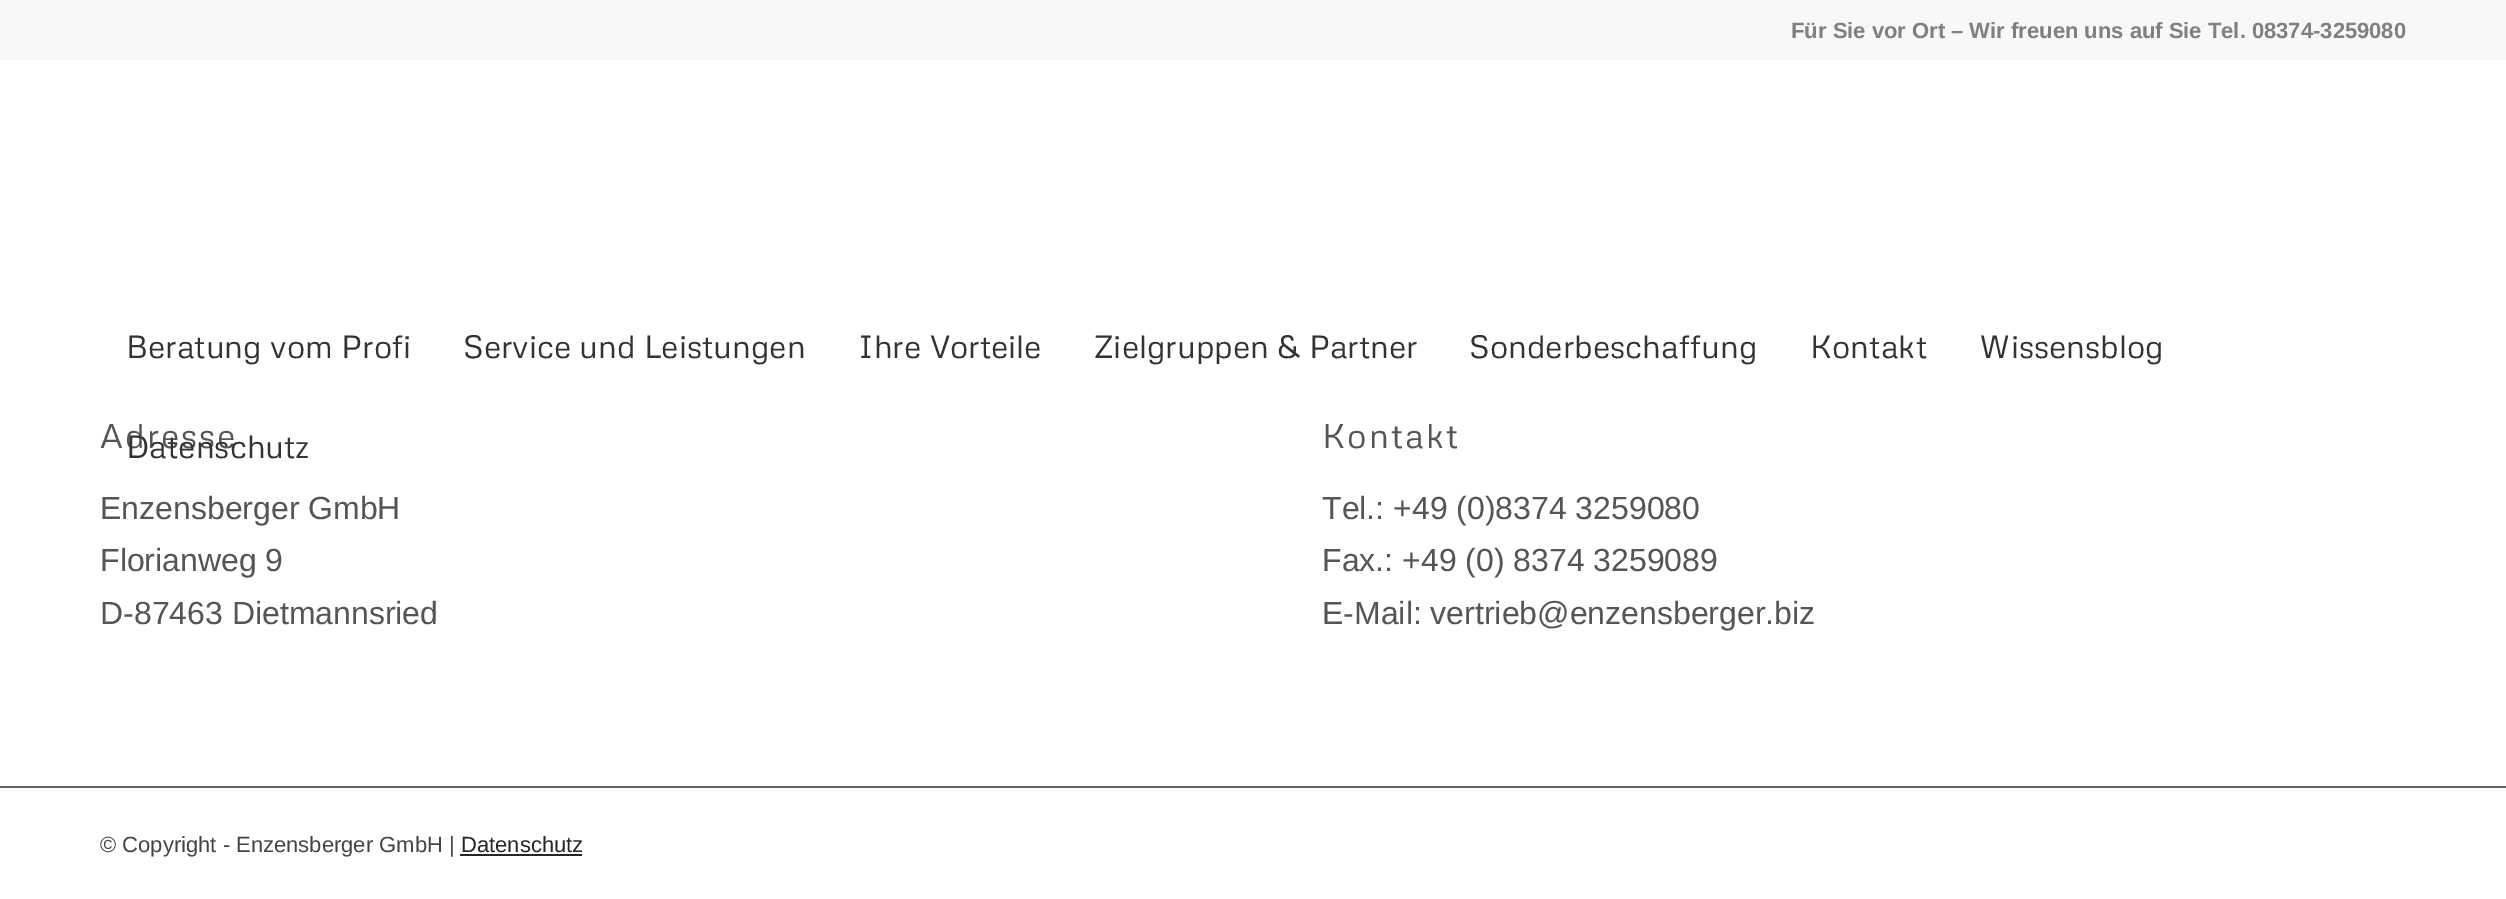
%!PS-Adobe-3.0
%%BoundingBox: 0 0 2506 899
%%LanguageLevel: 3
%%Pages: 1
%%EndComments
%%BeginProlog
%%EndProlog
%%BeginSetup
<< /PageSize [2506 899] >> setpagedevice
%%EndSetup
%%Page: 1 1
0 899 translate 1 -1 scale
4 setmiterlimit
1 setgray
0 0 2506 899 rectfill
0.973 setgray
0 0 2506 60 rectfill
0.357 0.392 0.42 setrgbcolor
0 786 2506 2 rectfill
0.149 setgray
460 854 122 2 rectfill
/LiberationSans-Bold [22 0 0 -22 0 0] selectfont
0.502 setgray
1791 38 moveto (Für Sie vor Ort – Wir freuen uns auf Sie Tel. 08374-3259080) show
/Metrophobic-Regular [32 0 0 -32 0 0] selectfont
0.2 setgray
126 358 moveto (Beratung vom Profi) show
463 358 moveto (Service und Leistungen) show
858 358 moveto (Ihre Vorteile) show
1094 358 moveto (Zielgruppen & Partner) show
1469 358 moveto (Sonderbeschaffung) show
1810 358 moveto (Kontakt) show
1979 358 moveto (Wissensblog) show
/Metrophobic-Regular [34 0 0 -34 0 0] selectfont
0.333 setgray
100 448 moveto 2 0 (Adresse) ashow
/Metrophobic-Regular [32 0 0 -32 0 0] selectfont
0.2 setgray
126 458 moveto (Datenschutz) show
/LiberationSans-Regular [32 0 0 -32 0 0] selectfont
0.333 setgray
100 519 moveto (Enzensberger GmbH) show
100 571 moveto (Florianweg 9) show
100 624 moveto (D-87463 Dietmannsried) show
/Metrophobic-Regular [34 0 0 -34 0 0] selectfont
1322 448 moveto 2 0 (Kontakt) ashow
/LiberationSans-Regular [32 0 0 -32 0 0] selectfont
1322 519 moveto (Tel.: +49 \(0\)8374 3259080) show
1322 571 moveto (Fax.: +49 \(0\) 8374 3259089) show
1322 624 moveto (E-Mail: vertrieb@enzensberger.biz) show
/LiberationSans-Regular [22 0 0 -22 0 0] selectfont
0.267 setgray
100 852 moveto (© Copyright - Enzensberger GmbH |) show
0.149 setgray
461 852 moveto (Datenschutz) show
showpage
%%EOF
